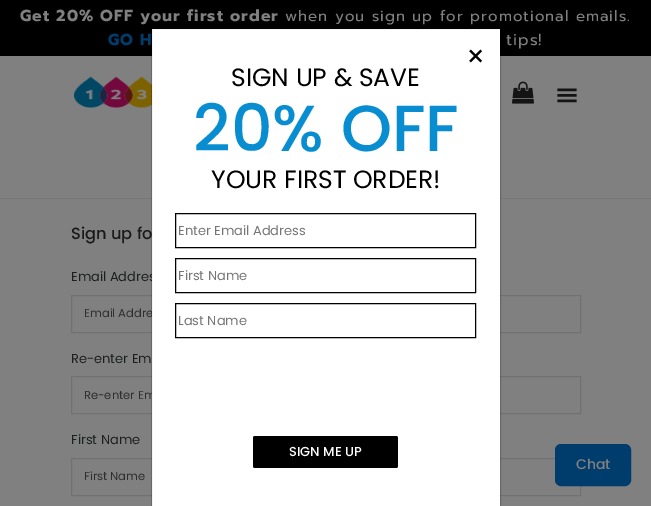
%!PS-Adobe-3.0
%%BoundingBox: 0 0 651 506
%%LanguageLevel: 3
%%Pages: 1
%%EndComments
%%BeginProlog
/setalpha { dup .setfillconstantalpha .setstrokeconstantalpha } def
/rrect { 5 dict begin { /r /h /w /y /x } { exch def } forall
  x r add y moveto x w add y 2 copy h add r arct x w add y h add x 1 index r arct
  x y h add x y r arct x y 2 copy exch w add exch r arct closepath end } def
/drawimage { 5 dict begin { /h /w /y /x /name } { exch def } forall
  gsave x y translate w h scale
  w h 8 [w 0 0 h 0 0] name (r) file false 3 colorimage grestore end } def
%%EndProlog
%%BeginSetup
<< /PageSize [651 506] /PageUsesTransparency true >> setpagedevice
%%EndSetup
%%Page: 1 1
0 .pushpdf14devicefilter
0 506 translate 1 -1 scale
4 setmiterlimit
0.502 setgray
0 0 651 506 rectfill
0 setgray
0 0 651 56 rectfill
0.467 setgray
0 198 651 1 rectfill
(images/1.raw) 74 76 78 32 drawimage
(images/2.raw) 512 81 22 23 drawimage
(images/3.raw) 557 88 20 15 drawimage
0.435 0.443 0.451 setrgbcolor
71.5 295.5 509 37 rectstroke
71.5 376.5 509 37 rectstroke
71.5 458.5 509 37 rectstroke
0 0.239 0.427 setrgbcolor
555.5 444.5 75 41 5.5 rrect gsave fill grestore
stroke
/Prompt-Bold [16 0 0 -16 0 0] selectfont
0.502 setgray
20 21 moveto 1 0 (Get 20% OFF your first order) ashow
/Prompt-Regular [15 0 0 -15 0 0] selectfont
285 21 moveto 1 0 (when you sign up for promotional emails.) ashow
/Prompt-Bold [16 0 0 -16 0 0] selectfont
0 0.239 0.427 setrgbcolor
108 45 moveto 1 0 (GO H) ashow
/Prompt-Regular [16 0 0 -16 0 0] selectfont
0.502 setgray
506 45 moveto 1 0 (tips!) ashow
/Poppins-Medium [16.25 0 0 -16.25 0 0] selectfont
0.102 setgray
71 239 moveto (Sign up fo) show
/Poppins-Regular [13 0 0 -13 0 0] selectfont
0.11 0.122 0.125 setrgbcolor
71 281 moveto (Email Addres) show
/Poppins-Regular [11.5 0 0 -11.5 0 0] selectfont
0.176 0.18 0.188 setrgbcolor
84 317 moveto (Email Addre) show
/Poppins-Regular [13 0 0 -13 0 0] selectfont
0.11 0.122 0.125 setrgbcolor
71 363 moveto (Re-enter Em) show
/Poppins-Regular [11.5 0 0 -11.5 0 0] selectfont
0.176 0.18 0.188 setrgbcolor
84 399 moveto (Re-enter Em) show
1 setgray
152 29 348 477 rectfill
0.18 setalpha
0 setgray
151.5 28.5 349 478 rectstroke
/Poppins-Regular [30 0 0 -30 0 0] selectfont
1 setalpha
466 67 moveto (×) show
253 436 145 32 2 rrect fill
/Poppins-Medium [13 0 0 -13 0 0] selectfont
1 setgray
289 456 moveto (SIGN ME UP) show
0 setgray
175.5 303.5 300 34 rectstroke
/Poppins-Regular [13 0 0 -13 0 0] selectfont
0.459 setgray
178 325 moveto (Last Name) show
0 setgray
175.5 258.5 300 34 rectstroke
0.459 setgray
178 280 moveto (First Name) show
0 setgray
175.5 213.5 300 34 rectstroke
0.459 setgray
178 235 moveto (Enter Email Address) show
/Poppins-Regular [25 0 0 -25 0 0] selectfont
0 setgray
211 188 moveto (YOUR FIRST ORDER!) show
/Poppins-Medium [65 0 0 -65 0 0] selectfont
0.027 0.553 0.816 setrgbcolor
193 151 moveto (20% OFF) show
/Poppins-Regular [25 0 0 -25 0 0] selectfont
0 setgray
231 86 moveto (SIGN UP & SAVE) show
/Poppins-Regular [13 0 0 -13 0 0] selectfont
0.11 0.122 0.125 setrgbcolor
71 444 moveto (First Name) show
/Poppins-Regular [11.5 0 0 -11.5 0 0] selectfont
0.176 0.18 0.188 setrgbcolor
84 480 moveto (First Name) show
/Poppins-Medium [14 0 0 -14 0 0] selectfont
0.502 setgray
576 469 moveto (Chat) show
.poppdf14devicefilter showpage
%%EOF
